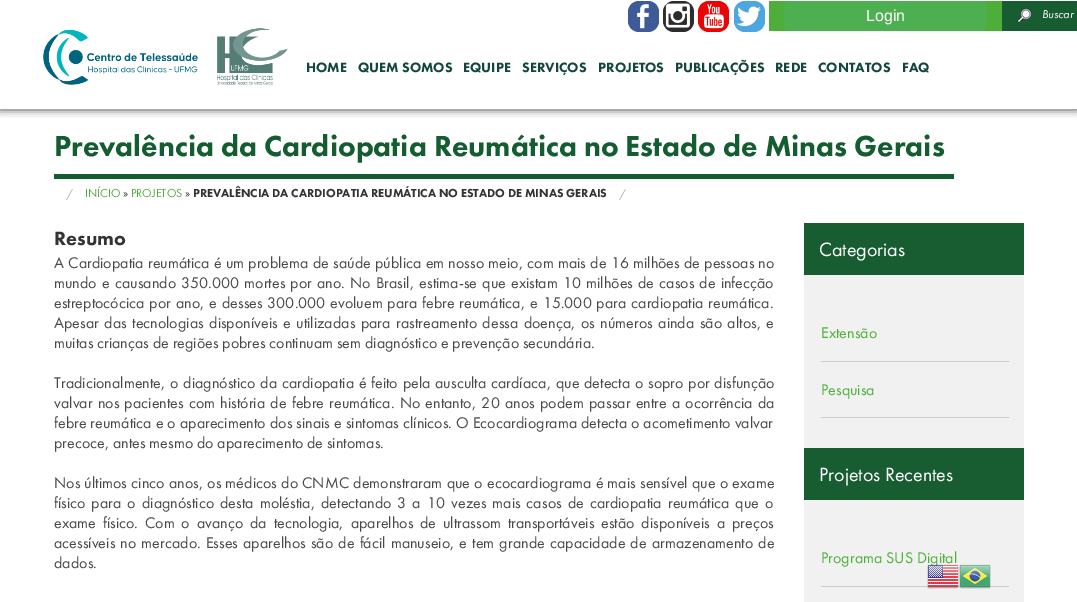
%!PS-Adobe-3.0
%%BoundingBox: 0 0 1077 602
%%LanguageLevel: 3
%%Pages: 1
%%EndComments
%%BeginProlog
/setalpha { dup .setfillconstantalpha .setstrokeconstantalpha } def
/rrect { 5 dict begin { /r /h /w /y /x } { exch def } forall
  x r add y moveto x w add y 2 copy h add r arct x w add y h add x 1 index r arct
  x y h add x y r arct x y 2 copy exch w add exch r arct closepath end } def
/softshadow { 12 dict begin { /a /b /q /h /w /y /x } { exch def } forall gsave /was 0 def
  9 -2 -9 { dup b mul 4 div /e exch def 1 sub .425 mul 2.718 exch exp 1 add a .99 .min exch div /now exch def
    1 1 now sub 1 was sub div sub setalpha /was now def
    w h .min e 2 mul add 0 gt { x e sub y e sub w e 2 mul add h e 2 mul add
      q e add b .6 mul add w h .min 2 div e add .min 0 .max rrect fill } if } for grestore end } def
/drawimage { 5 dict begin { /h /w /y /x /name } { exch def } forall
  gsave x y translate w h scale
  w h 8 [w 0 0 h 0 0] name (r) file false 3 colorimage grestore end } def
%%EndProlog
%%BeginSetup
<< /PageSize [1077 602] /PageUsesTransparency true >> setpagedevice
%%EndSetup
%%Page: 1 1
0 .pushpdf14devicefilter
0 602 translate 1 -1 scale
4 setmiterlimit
1 setgray
0 0 1077 602 rectfill
gsave
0 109 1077 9 rectclip
0.196 setgray
0 1 1077 109 0 4 0.85 softshadow
grestore
(images/1.raw) 43 28 245 57 drawimage
0.243 0.357 0.596 setrgbcolor
628 1 31 31 11 rrect fill
(images/2.raw) 637 4 12 25 drawimage
0.173 setgray
663 1 31 31 11 rrect fill
(images/3.raw) 665 3 25 25 drawimage
0.918 0.016 0.016 setrgbcolor
698 1 31 31 11 rrect fill
(images/4.raw) 704 4 20 25 drawimage
0.302 0.655 0.871 setrgbcolor
734 1 31 31 11 rrect fill
(images/5.raw) 736 6 25 21 drawimage
0.302 0.682 0.227 setrgbcolor
769 1 233 30 rectfill
0.298 0.686 0.314 setrgbcolor
784 1 203 30 7 rrect fill
0.094 0.361 0.196 setrgbcolor
1002 1 75 30 rectfill
(images/6.raw) 1017 8 15 15 drawimage
0.075 0.365 0.188 setrgbcolor
54 174 900 5 rectfill
0.945 setgray
804 275 220 327 rectfill
0.094 0.361 0.196 setrgbcolor
804 223 220 52 rectfill
0.8 setgray
821 361 188 1 rectfill
821 417 188 1 rectfill
0.094 0.361 0.196 setrgbcolor
804 448 220 52 rectfill
0.8 setgray
821 586 188 1 rectfill
(images/8.raw) 959 564 32 25 drawimage
/LiberationSans-Regular [16 0 0 -16 0 0] selectfont
1 setgray
866 21 moveto (Login) show
/FuturaPT-Italic [12 0 0 -12 0 0] selectfont
1042 18 moveto (Buscar) show
/FuturaPT-Black [14 0 0 -14 0 0] selectfont
0.075 0.275 0.247 setrgbcolor
306 72 moveto (HOME) show
358 72 moveto (QUEM SOMOS) show
463 72 moveto (EQUIPE) show
522 72 moveto (SERVIÇOS) show
598 72 moveto (PROJETOS) show
675 72 moveto (PUBLICAÇÕES) show
775 72 moveto (REDE) show
818 72 moveto (CONTATOS) show
902 72 moveto (FAQ) show
/FuturaPT-Black [30 0 0 -30 0 0] selectfont
0.075 0.365 0.188 setrgbcolor
54 156 moveto (Prevalência da Cardiopatia Reumática no Estado de Minas Gerais) show
/FuturaPT-Regular [12 0 0 -12 0 0] selectfont
0.667 setgray
66 198 moveto (/) show
0.318 0.678 0.255 setrgbcolor
85 197 moveto (INÍCIO) show
0.2 setgray
123 197 moveto (») show
0.318 0.678 0.255 setrgbcolor
131 197 moveto (PROJETOS) show
0.2 setgray
185 197 moveto (») show
/FuturaPT-Black [12 0 0 -12 0 0] selectfont
193 197 moveto (PREVALÊNCIA DA CARDIOPATIA REUMÁTICA NO ESTADO DE MINAS GERAIS) show
/FuturaPT-Regular [12 0 0 -12 0 0] selectfont
0.667 setgray
619 198 moveto (/) show
/FuturaPT-Black [20 0 0 -20 0 0] selectfont
0.2 setgray
54 245 moveto (Resumo) show
/FuturaPT-Regular [16 0 0 -16 0 0] selectfont
0.286 0.282 0.282 setrgbcolor
54 268 moveto 0.5 0 32 (A Cardiopatia reumática é um problema de saúde pública em nosso meio, com mais de 16 milhões de pessoas no) widthshow
54 288 moveto 1.4 0 32 (mundo e causando 350.000 mortes por ano. No Brasil, estima-se que existam 10 milhões de casos de infecção) widthshow
54 308 moveto 1.1 0 32 (estreptocócica por ano, e desses 300.000 evoluem para febre reumática, e 15.000 para cardiopatia reumática.) widthshow
54 328 moveto 1.7 0 32 (Apesar das tecnologias disponíveis e utilizadas para rastreamento dessa doença, os números ainda são altos, e) widthshow
54 348 moveto (muitas crianças de regiões pobres continuam sem diagnóstico e prevenção secundária.) show
54 388 moveto 1 0 32 (Tradicionalmente, o diagnóstico da cardiopatia é feito pela ausculta cardíaca, que detecta o sopro por disfunção) widthshow
54 408 moveto 1.5 0 32 (valvar nos pacientes com história de febre reumática. No entanto, 20 anos podem passar entre a ocorrência da) widthshow
54 428 moveto 0.25 0 32 (febre reumática e o aparecimento dos sinais e sintomas clínicos. O Ecocardiograma detecta o acometimento valvar) widthshow
54 448 moveto (precoce, antes mesmo do aparecimento de sintomas.) show
54 488 moveto 0.5 0 32 (Nos últimos cinco anos, os médicos do CNMC demonstraram que o ecocardiograma é mais sensível que o exame) widthshow
54 508 moveto 2.25 0 32 (físico para o diagnóstico desta moléstia, detectando 3 a 10 vezes mais casos de cardiopatia reumática que o) widthshow
54 528 moveto 3.1 0 32 (exame físico. Com o avanço da tecnologia, aparelhos de ultrassom transportáveis estão disponíveis a preços) widthshow
54 548 moveto 1.4 0 32 (acessíveis no mercado. Esses aparelhos são de fácil manuseio, e tem grande capacidade de armazenamento de) widthshow
54 568 moveto (dados.) show
/FuturaPT-Regular [20 0 0 -20 0 0] selectfont
1 setgray
819 256 moveto (Categorias) show
/FuturaPT-Regular [16 0 0 -16 0 0] selectfont
0.298 0.698 0.212 setrgbcolor
821 338 moveto (Extensão) show
821 395 moveto (Pesquisa) show
/FuturaPT-Regular [20 0 0 -20 0 0] selectfont
1 setgray
819 481 moveto (Projetos Recentes) show
/FuturaPT-Regular [16 0 0 -16 0 0] selectfont
0.298 0.698 0.212 setrgbcolor
821 563 moveto (Programa SUS Digital) show
(images/7.raw) 927 564 32 25 drawimage
.poppdf14devicefilter showpage
%%EOF
